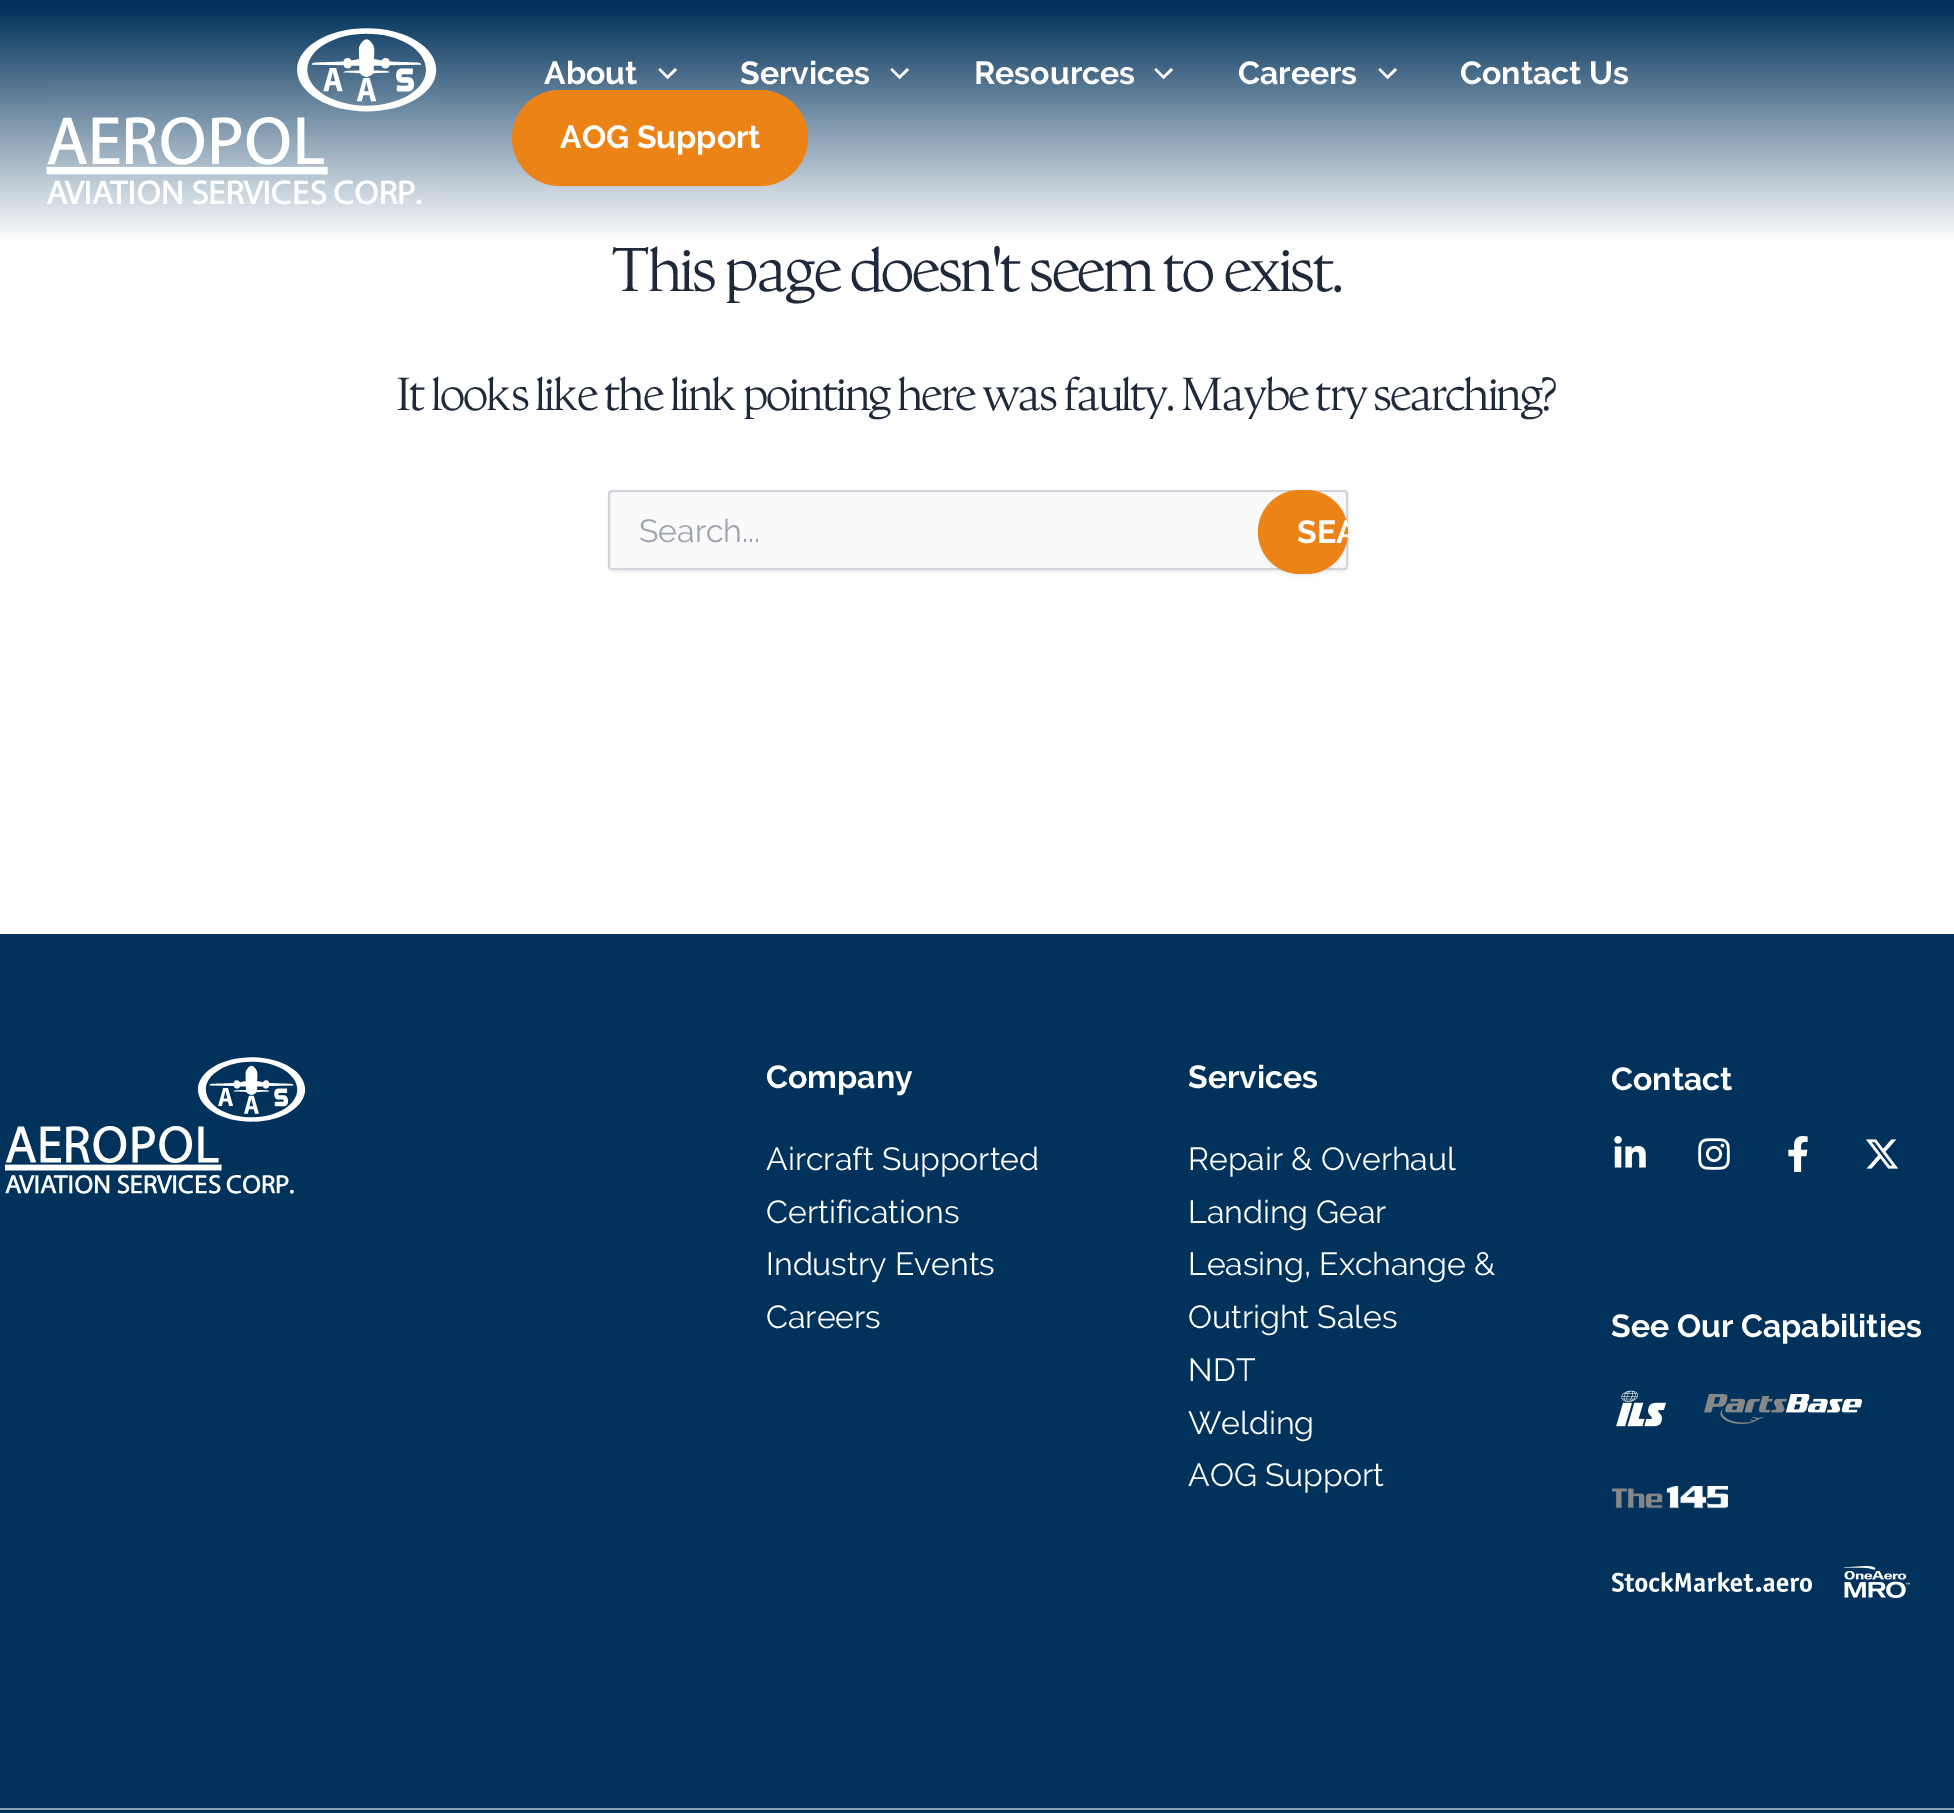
%!PS-Adobe-3.0
%%BoundingBox: 0 0 1954 1813
%%LanguageLevel: 3
%%Pages: 1
%%EndComments
%%BeginProlog
/setalpha { dup .setfillconstantalpha .setstrokeconstantalpha } def
/rrect { 5 dict begin { /r /h /w /y /x } { exch def } forall
  x r add y moveto x w add y 2 copy h add r arct x w add y h add x 1 index r arct
  x y h add x y r arct x y 2 copy exch w add exch r arct closepath end } def
/softshadow { 12 dict begin { /a /b /q /h /w /y /x } { exch def } forall gsave /was 0 def
  9 -2 -9 { dup b mul 4 div /e exch def 1 sub .425 mul 2.718 exch exp 1 add a .99 .min exch div /now exch def
    1 1 now sub 1 was sub div sub setalpha /was now def
    w h .min e 2 mul add 0 gt { x e sub y e sub w e 2 mul add h e 2 mul add
      q e add b .6 mul add w h .min 2 div e add .min 0 .max rrect fill } if } for grestore end } def
/drawimage { 5 dict begin { /h /w /y /x /name } { exch def } forall
  gsave x y translate w h scale
  w h 8 [w 0 0 h 0 0] name (r) file false 3 colorimage grestore end } def
%%EndProlog
%%BeginSetup
<< /PageSize [1954 1813] /PageUsesTransparency true >> setpagedevice
%%EndSetup
%%Page: 1 1
0 .pushpdf14devicefilter
0 1813 translate 1 -1 scale
4 setmiterlimit
1 setgray
0 0 1954 1813 rectfill
gsave newpath 0 0 moveto 1954 0 lineto 1954 240 lineto 0 240 lineto closepath clip newpath
<< /ShadingType 2 /ColorSpace /DeviceRGB /Coords [977 -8 977 242] /Extend [true true] /Function << /FunctionType 3 /Domain [0 1] /Functions [<< /FunctionType 2 /Domain [0 1] /C0 [0 0.196 0.357] /C1 [0 0.196 0.357] /N 1 >> << /FunctionType 2 /Domain [0 1] /C0 [0 0.196 0.357] /C1 [1 1 1] /N 1 >>] /Bounds [0.06] /Encode [0 1 0 1] >> >> shfill grestore
(images/1.raw) 46 28 391 177 drawimage
newpath 658.5 70 moveto 667.5 79 lineto 677 70 lineto 675 68 lineto 667.5 75.5 lineto 660 68 lineto closepath fill
newpath 890.5 70 moveto 899.5 79 lineto 909 70 lineto 907 68 lineto 899.5 75.5 lineto 892 68 lineto closepath fill
newpath 1154.5 70 moveto 1163.5 79 lineto 1173 70 lineto 1171 68 lineto 1163.5 75.5 lineto 1156 68 lineto closepath fill
newpath 1378.5 70 moveto 1387.5 79 lineto 1397 70 lineto 1395 68 lineto 1387.5 75.5 lineto 1380 68 lineto closepath fill
0.922 0.514 0.09 setrgbcolor
512 90 296 96 48 rrect fill
0 setgray
608 492 740 80 4 2 0.05 softshadow
0.98 setgray
609 491 738 78 3 rrect gsave fill grestore
0.82 0.835 0.859 setrgbcolor
2 setlinewidth
stroke
0 setgray
1258 492 90 84 42 2 0.05 softshadow
0.922 0.514 0.09 setrgbcolor
1258 490 90 84 42 rrect fill
0 0.196 0.357 setrgbcolor
0 934 1954 874 rectfill
(images/2.raw) 5 1057 301 137 drawimage
(images/3.raw) 1614 1136 32 32 drawimage
(images/4.raw) 1698 1138 32 32 drawimage
(images/5.raw) 1788 1136 20 36 drawimage
(images/6.raw) 1866 1139 33 30 drawimage
(images/7.raw) 1616 1390 50 37 drawimage
(images/8.raw) 1704 1394 158 30 drawimage
(images/9.raw) 1612 1486 116 23 drawimage
(images/10.raw) 1612 1572 200 20 drawimage
(images/11.raw) 1844 1566 66 32 drawimage
0 1810 1954 3 rectfill
0.529 0.624 0.698 setrgbcolor
0 1808 1954 2 rectfill
/Raleway-Bold [32 0 0 -32 0 0] selectfont
1 setgray
544 84 moveto (About) show
740 84 moveto (Services) show
974 84 moveto (Resources) show
1238 84 moveto (Careers) show
1460 84 moveto (Contact Us) show
560 148 moveto (AOG Support) show
/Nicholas-Regular [64 0 0 -64 0 0] selectfont
0.118 0.161 0.231 setrgbcolor
612 291 moveto (This page doesn't seem to exist.) show
/Nicholas-Regular [48 0 0 -48 0 0] selectfont
397 410 moveto (It looks like the link pointing here was faulty. Maybe try searching?) show
/Raleway-Regular [32 0 0 -32 0 0] selectfont
0.612 0.639 0.686 setrgbcolor
639 542 moveto (Search...) show
gsave
1258 490 90 84 42 rrect clip newpath
/Raleway-Bold [32 0 0 -32 0 0] selectfont
1 setgray
1297 543 moveto (SEA) show
grestore
/Raleway-Bold [32 0 0 -32 0 0] selectfont
1 setgray
766 1088 moveto (Company) show
/Raleway-Regular [32 0 0 -32 0 0] selectfont
766 1170 moveto (Aircraft Supported) show
766 1223 moveto (Certifications) show
766 1275 moveto (Industry Events) show
766 1328 moveto (Careers) show
/Raleway-Bold [32 0 0 -32 0 0] selectfont
1188 1088 moveto (Services) show
/Raleway-Regular [32 0 0 -32 0 0] selectfont
1188 1170 moveto (Repair & Overhaul) show
1188 1223 moveto (Landing Gear) show
1188 1275 moveto (Leasing, Exchange &) show
1188 1328 moveto (Outright Sales) show
1188 1381 moveto (NDT) show
1188 1434 moveto (Welding) show
1188 1486 moveto (AOG Support) show
/Raleway-Bold [32 0 0 -32 0 0] selectfont
1611 1090 moveto (Contact) show
1611 1337 moveto (See Our Capabilities) show
.poppdf14devicefilter showpage
%%EOF
